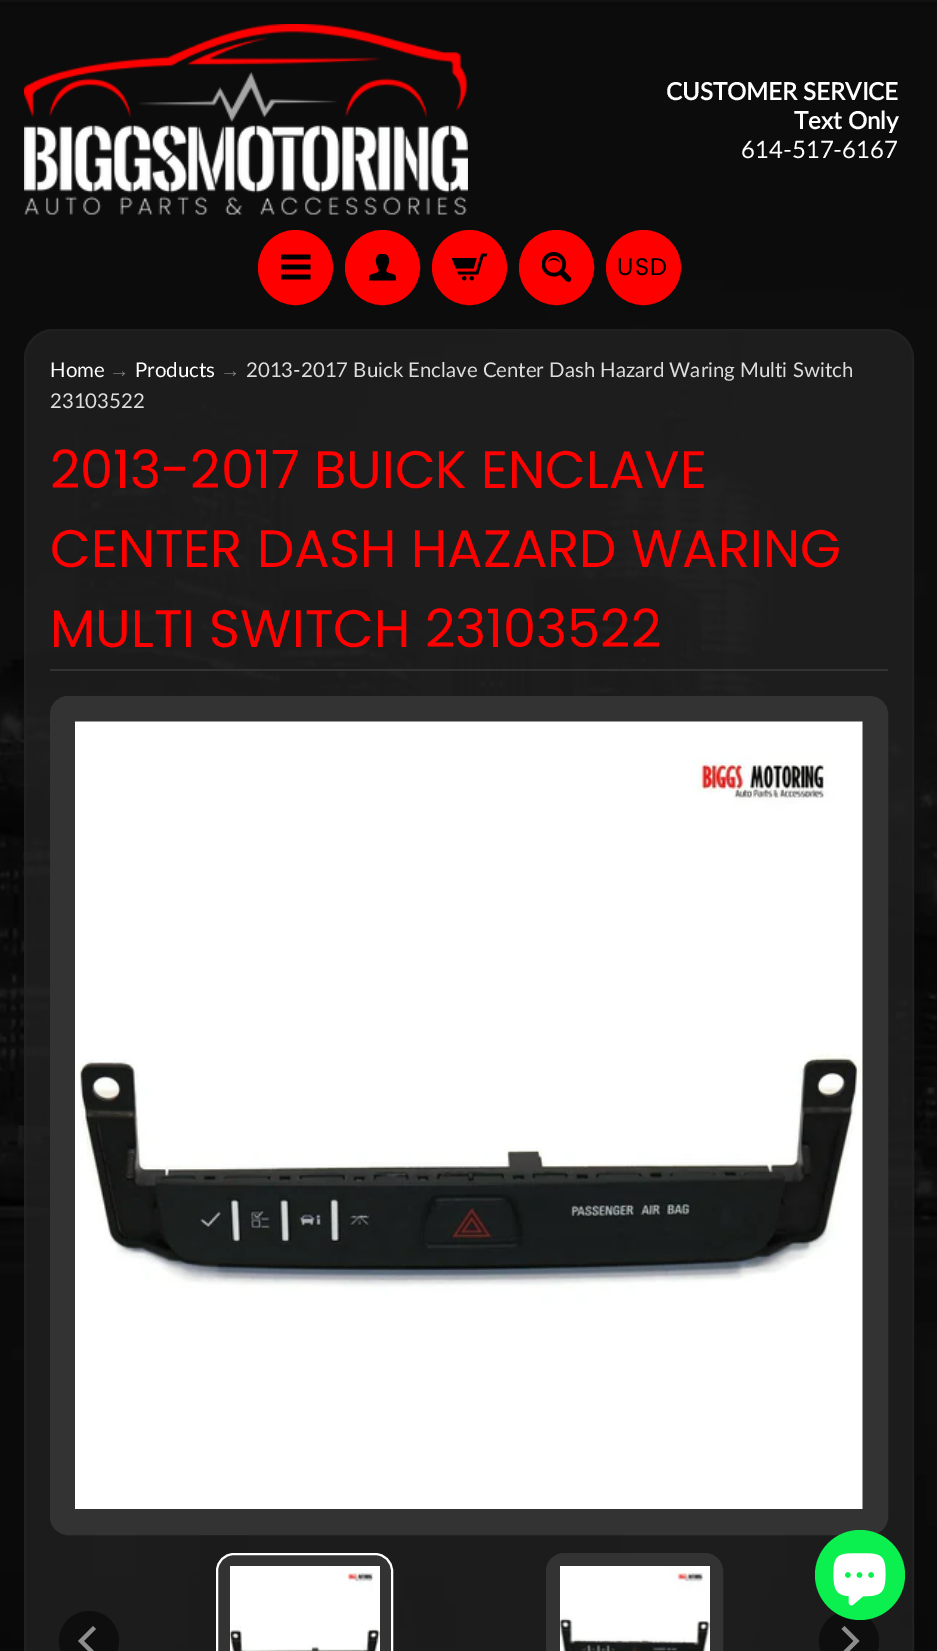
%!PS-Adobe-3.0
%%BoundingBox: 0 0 937 1651
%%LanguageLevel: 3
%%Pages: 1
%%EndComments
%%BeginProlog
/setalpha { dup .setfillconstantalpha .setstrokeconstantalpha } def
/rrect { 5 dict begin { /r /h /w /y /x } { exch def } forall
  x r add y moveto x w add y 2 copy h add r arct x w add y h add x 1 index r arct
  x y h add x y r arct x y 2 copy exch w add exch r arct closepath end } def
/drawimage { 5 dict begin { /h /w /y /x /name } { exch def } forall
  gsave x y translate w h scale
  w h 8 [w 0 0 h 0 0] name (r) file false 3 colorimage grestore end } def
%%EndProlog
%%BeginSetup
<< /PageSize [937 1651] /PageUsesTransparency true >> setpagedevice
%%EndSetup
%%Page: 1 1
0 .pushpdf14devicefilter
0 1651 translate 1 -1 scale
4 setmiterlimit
1 setgray
0 0 937 1651 rectfill
(images/1.raw) 0 0 937 1651 drawimage
(images/2.raw) 24 24 444 191 drawimage
1 0 0 setrgbcolor
newpath 295.5 267.5 35 0 360 arc closepath gsave fill grestore
5 setlinewidth
stroke
(images/3.raw) 281 254 30 26 drawimage
newpath 382.5 267.5 35 0 360 arc closepath gsave fill grestore
stroke
(images/4.raw) 369 254 27 27 drawimage
newpath 469.5 267.5 35 0 360 arc closepath gsave fill grestore
stroke
(images/5.raw) 452 253 36 28 drawimage
newpath 556.5 267.5 35 0 360 arc closepath gsave fill grestore
stroke
(images/6.raw) 542 252 30 30 drawimage
newpath 643.5 267.5 35 0 360 arc closepath gsave fill grestore
stroke
0.75 setalpha
0.133 setgray
24 329 890 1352 30 rrect fill
0.7 setalpha
2 setlinewidth
25 330 888 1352 29 rrect stroke
1 setalpha
0.2 setgray
50 669 838 2 rectfill
51 697 836 837 17 rrect gsave fill grestore
stroke
(images/7.raw) 75 721 788 788 drawimage
217 1554 175 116 17 rrect gsave fill grestore
1 setgray
stroke
(images/8.raw) 230 1566 150 85 drawimage
0.2 setgray
547 1554 175 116 17 rrect gsave fill grestore
stroke
(images/9.raw) 560 1566 150 85 drawimage
0.055 setgray
newpath 89 1641 30 0 360 arc closepath fill
0.557 setgray
newpath 93 1626 moveto 96 1629 lineto 84 1641 lineto 96 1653 lineto 93 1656 lineto 78 1641 lineto closepath fill
0.055 setgray
newpath 849 1641 30 0 360 arc closepath fill
0.553 setgray
newpath 844.5 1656 moveto 841.5 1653 lineto 853.5 1641 lineto 841.5 1629 lineto 844.5 1626 lineto 859.5 1641 lineto closepath fill
0.047 0.941 0.31 setrgbcolor
newpath 860 1575 45 0 360 arc closepath fill
(images/10.raw) 833 1553 53 53 drawimage
/Lato-Bold [24 0 0 -24 0 0] selectfont
1 setgray
666 100 moveto (CUSTOMER SERVICE) show
794 129 moveto (Text Only) show
/Lato-Regular [24 0 0 -24 0 0] selectfont
741 158 moveto (614-517-6167) show
/Poppins-Regular [24 0 0 -24 0 0] selectfont
0 setgray
617 275 moveto 1.5 0 (USD) ashow
/Lato-Regular [20.4 0 0 -20.4 0 0] selectfont
1 setgray
50 377 moveto (Home) show
/LiberationSans-Regular [20.4 0 0 -20.4 0 0] selectfont
0.49 setgray
109 377 moveto (→) show
/Lato-Regular [20.4 0 0 -20.4 0 0] selectfont
1 setgray
135 377 moveto (Products) show
/LiberationSans-Regular [20.4 0 0 -20.4 0 0] selectfont
0.49 setgray
220 377 moveto (→) show
/Lato-Regular [20.4 0 0 -20.4 0 0] selectfont
0.867 setgray
246 377 moveto (2013-2017 Buick Enclave Center Dash Hazard Waring Multi Switch) show
50 408 moveto (23103522) show
/Poppins-Regular [52.75 0 0 -52.75 0 0] selectfont
1 0 0 setrgbcolor
50 488 moveto (2013-2017 BUICK ENCLAVE) show
50 567 moveto (CENTER DASH HAZARD WARING) show
50 647 moveto (MULTI SWITCH 23103522) show
.poppdf14devicefilter showpage
%%EOF
